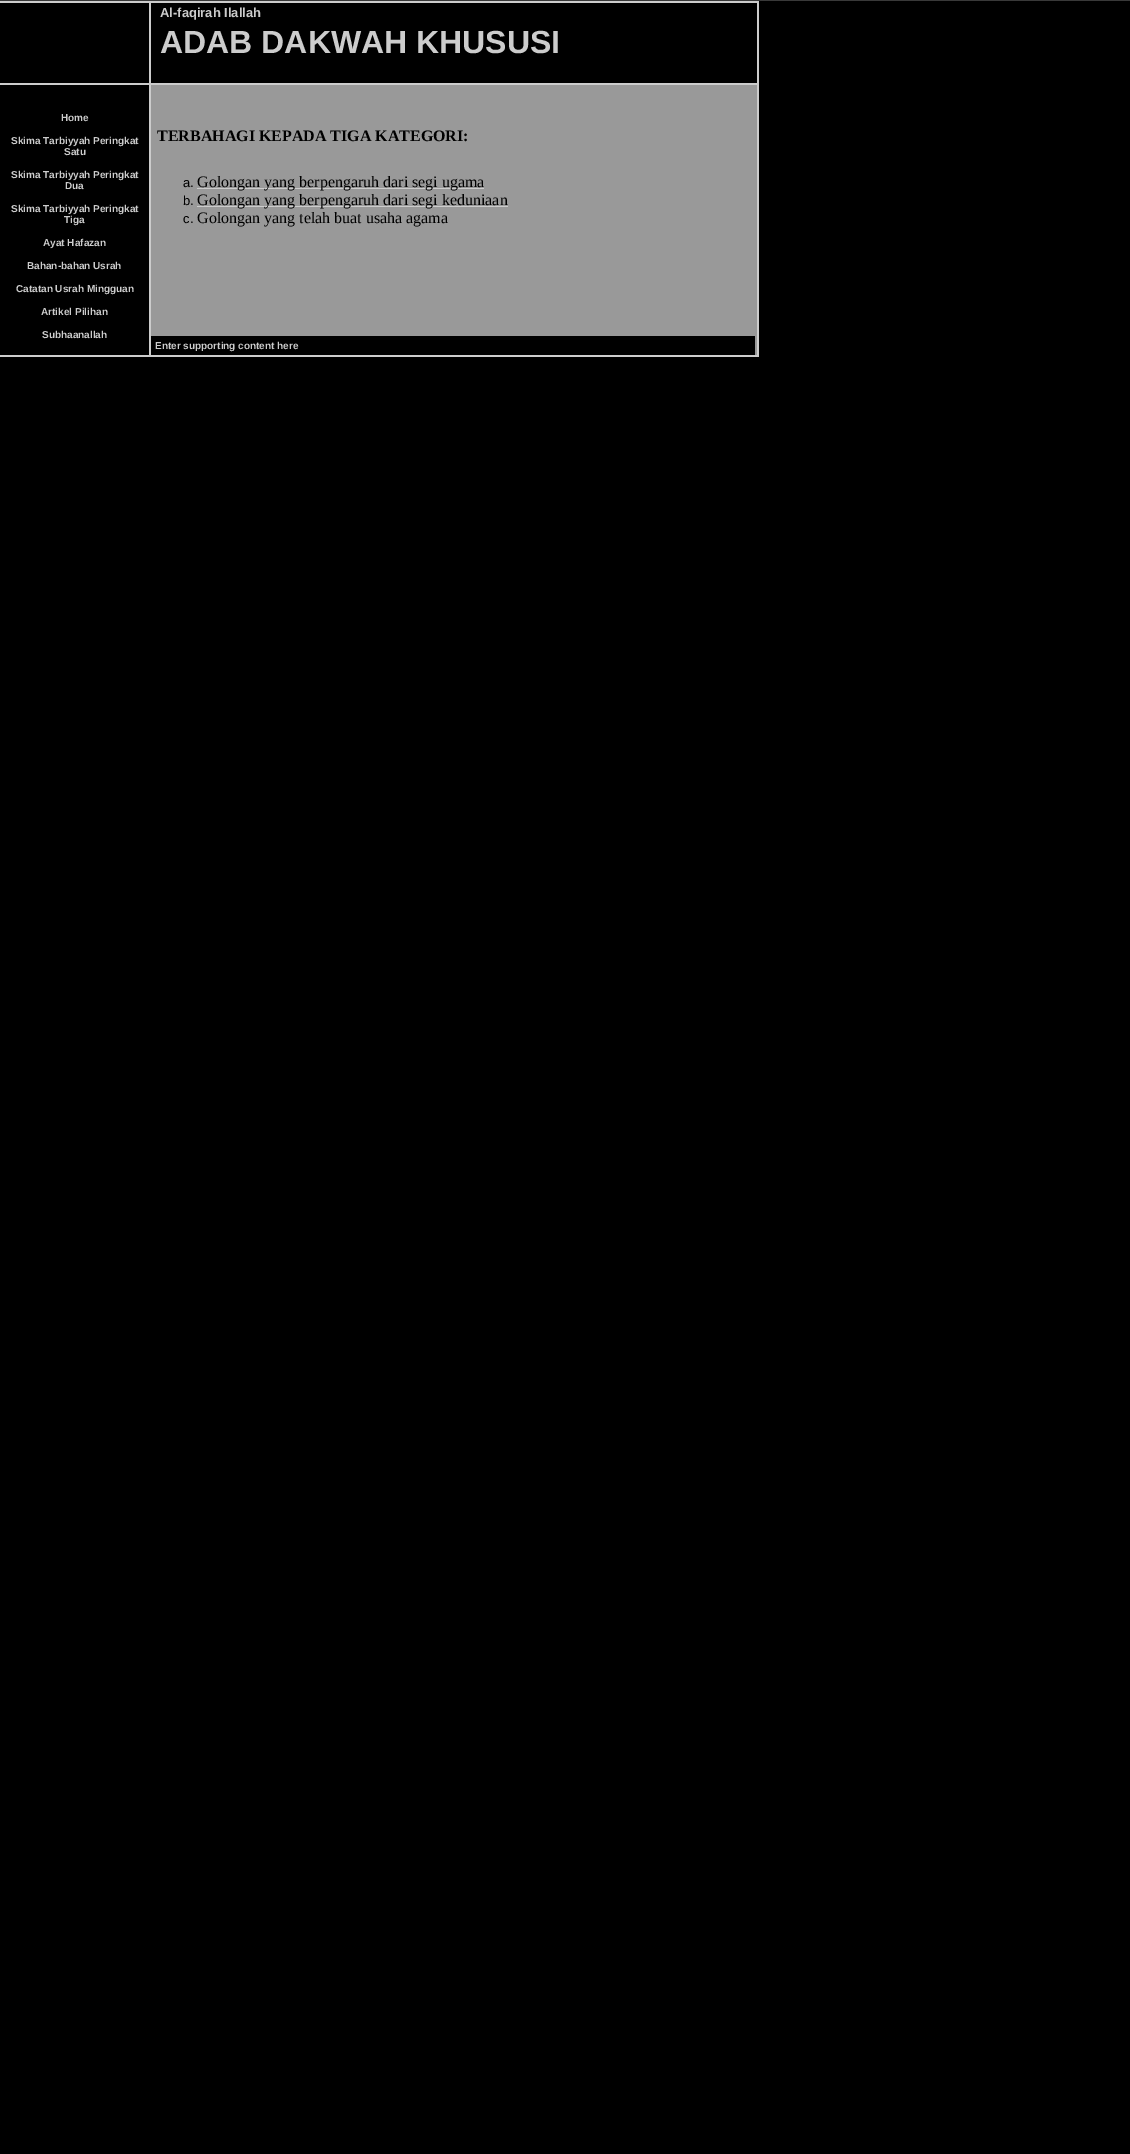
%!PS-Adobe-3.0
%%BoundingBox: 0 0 1130 2154
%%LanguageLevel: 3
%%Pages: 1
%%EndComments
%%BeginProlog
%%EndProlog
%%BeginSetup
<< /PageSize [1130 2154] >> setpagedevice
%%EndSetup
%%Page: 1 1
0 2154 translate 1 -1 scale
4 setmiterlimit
0 setgray
0 0 1130 2154 rectfill
0.224 setgray
0 0 1130 1 rectfill
0.8 setgray
0 1 759 2 rectfill
149 3 2 80 rectfill
757 3 2 80 rectfill
0 83 759 2 rectfill
149 85 2 270 rectfill
0.6 setgray
151 85 606 270 rectfill
0.8 setgray
197 188 287 1 rectfill
197 206 311 1 rectfill
0 setgray
151 336 604 19 rectfill
0.8 setgray
757 85 2 270 rectfill
0 355 759 2 rectfill
/LiberationSans-Bold [13 0 0 -13 0 0] selectfont
160 17 moveto (Al-faqirah Ilallah) show
/LiberationSans-Bold [32 0 0 -32 0 0] selectfont
160 53 moveto (ADAB DAKWAH KHUSUSI) show
/LiberationSans-Bold [10 0 0 -10 0 0] selectfont
61 121 moveto (Home) show
11 144 moveto (Skima Tarbiyyah Peringkat) show
64 155 moveto (Satu) show
11 178 moveto (Skima Tarbiyyah Peringkat) show
65 189 moveto (Dua) show
11 212 moveto (Skima Tarbiyyah Peringkat) show
64 223 moveto (Tiga) show
43 246 moveto (Ayat Hafazan) show
27 269 moveto (Bahan-bahan Usrah) show
16 292 moveto (Catatan Usrah Mingguan) show
41 315 moveto (Artikel Pilihan) show
42 338 moveto (Subhaanallah) show
/LiberationSerif-Bold [16 0 0 -16 0 0] selectfont
0 setgray
157 141 moveto (TERBAHAGI KEPADA TIGA KATEGORI:) show
/LiberationSans-Regular [13 0 0 -13 0 0] selectfont
183 187 moveto (a.) show
/LiberationSerif-Regular [16 0 0 -16 0 0] selectfont
197 187 moveto (Golongan yang berpengaruh dari segi ugama) show
/LiberationSans-Regular [13 0 0 -13 0 0] selectfont
183 205 moveto (b.) show
/LiberationSerif-Regular [16 0 0 -16 0 0] selectfont
197 205 moveto (Golongan yang berpengaruh dari segi keduniaan) show
/LiberationSans-Regular [13 0 0 -13 0 0] selectfont
183 223 moveto (c.) show
/LiberationSerif-Regular [16 0 0 -16 0 0] selectfont
197 223 moveto (Golongan yang telah buat usaha agama) show
/LiberationSans-Bold [10 0 0 -10 0 0] selectfont
0.8 setgray
155 349 moveto (Enter supporting content here) show
showpage
%%EOF
